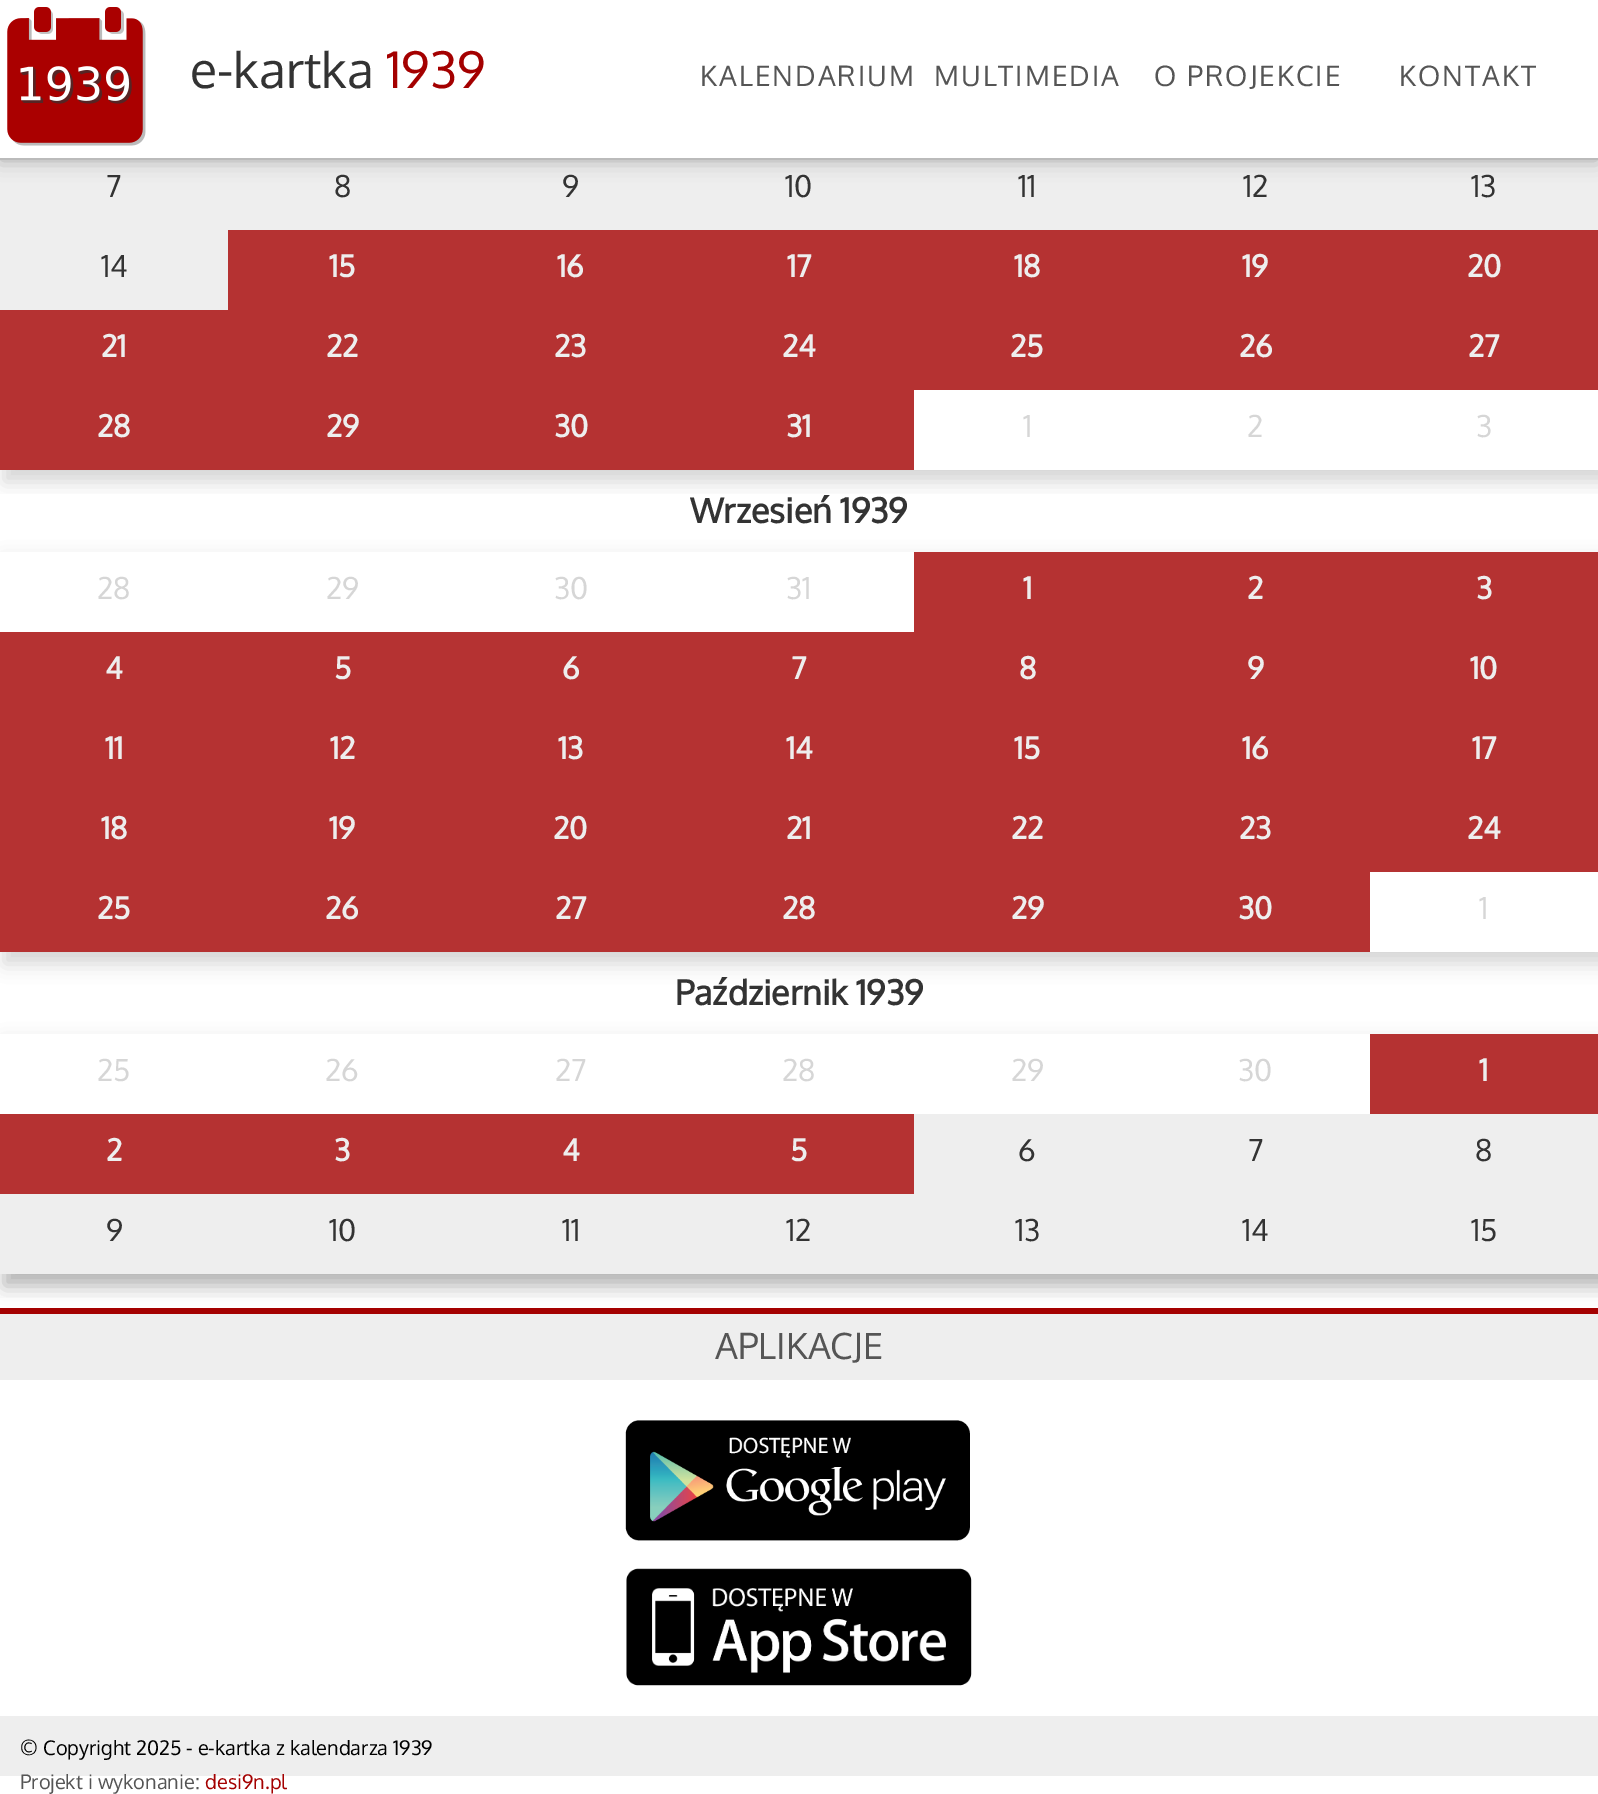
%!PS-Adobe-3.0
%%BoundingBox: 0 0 1598 1794
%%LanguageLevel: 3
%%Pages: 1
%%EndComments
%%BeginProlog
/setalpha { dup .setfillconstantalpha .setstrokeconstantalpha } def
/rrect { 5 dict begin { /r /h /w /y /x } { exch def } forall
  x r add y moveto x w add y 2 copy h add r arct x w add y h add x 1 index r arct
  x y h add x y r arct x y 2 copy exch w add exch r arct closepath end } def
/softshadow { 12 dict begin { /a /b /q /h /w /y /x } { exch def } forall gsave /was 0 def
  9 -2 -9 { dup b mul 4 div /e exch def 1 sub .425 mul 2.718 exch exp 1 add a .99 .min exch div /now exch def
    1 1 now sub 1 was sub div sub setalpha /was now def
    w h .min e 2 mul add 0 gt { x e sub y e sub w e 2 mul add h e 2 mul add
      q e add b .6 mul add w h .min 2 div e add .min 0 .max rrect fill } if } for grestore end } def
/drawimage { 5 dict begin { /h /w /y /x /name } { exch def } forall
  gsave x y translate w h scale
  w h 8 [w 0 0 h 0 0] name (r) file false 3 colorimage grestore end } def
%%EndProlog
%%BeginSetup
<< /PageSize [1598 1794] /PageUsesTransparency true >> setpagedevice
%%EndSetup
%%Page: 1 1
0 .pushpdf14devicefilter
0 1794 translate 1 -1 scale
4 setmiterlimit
1 setgray
0 0 1598 1794 rectfill
gsave
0 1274 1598 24 rectclip
0.2 setgray
4 14 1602 1272 0 9 0.2 softshadow
grestore
gsave
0 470 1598 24 rectclip
0.2 setgray
4 158 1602 324 0 9 0.2 softshadow
grestore
0.933 setgray
0 160 1598 70 rectfill
0 setgray
0 0 1598 160 0 10 0.3 softshadow
1 setgray
0 0 1598 158 rectfill
0.733 setgray
0 158 1598 2 rectfill
(images/1.raw) 7 7 139 139 drawimage
0.933 setgray
0 230 228 80 rectfill
0.71 0.196 0.196 setrgbcolor
228 230 1370 80 rectfill
0 310 1598 80 rectfill
0 390 914 80 rectfill
gsave
newpath 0 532 moveto 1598 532 lineto 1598 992 lineto 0 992 lineto closepath 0 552 moveto 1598 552 lineto 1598 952 lineto 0 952 lineto closepath eoclip newpath
0.2 setgray
4 560 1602 404 0 9 0.2 softshadow
grestore
914 552 684 80 rectfill
0 632 1598 80 rectfill
0 712 1598 80 rectfill
0 792 1598 80 rectfill
0 872 1370 80 rectfill
gsave
newpath 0 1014 moveto 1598 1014 lineto 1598 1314 lineto 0 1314 lineto closepath 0 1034 moveto 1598 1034 lineto 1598 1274 lineto 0 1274 lineto closepath eoclip newpath
0.2 setgray
4 1042 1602 244 0 9 0.2 softshadow
grestore
1370 1034 228 80 rectfill
0 1114 914 80 rectfill
0.933 setgray
914 1114 684 80 rectfill
0 1194 1598 80 rectfill
0.643 0 0 setrgbcolor
0 1308 1598 6 rectfill
0.933 setgray
0 1314 1598 66 rectfill
(images/2.raw) 625 1420 345 121 drawimage
(images/3.raw) 626 1568 346 118 drawimage
0 1716 1598 60 rectfill
/Oxygen-Regular [50 0 0 -50 0 0] selectfont
0.2 setgray
190 88 moveto (e-kartka) show
0.643 0 0 setrgbcolor
386 88 moveto (1939) show
/Oxygen-Regular [28 0 0 -28 0 0] selectfont
0.333 setgray
700 86 moveto 2 0 (KALENDARIUM) ashow
934 86 moveto 2 0 (MULTIMEDIA) ashow
1154 86 moveto 2 0 (O PROJEKCIE) ashow
1399 86 moveto 2 0 (KONTAKT) ashow
/Oxygen-Regular [30 0 0 -30 0 0] selectfont
0.2 setgray
106 197 moveto (7) show
334 197 moveto (8) show
562 197 moveto (9) show
785 197 moveto (10) show
1018 197 moveto (11) show
1243 197 moveto (12) show
1471 197 moveto (13) show
101 277 moveto (14) show
/Oxygen-Bold [30 0 0 -30 0 0] selectfont
0.933 setgray
329 277 moveto (15) show
557 277 moveto (16) show
787 277 moveto (17) show
1014 277 moveto (18) show
1242 277 moveto (19) show
1467 277 moveto (20) show
101 357 moveto (21) show
326 357 moveto (22) show
554 357 moveto (23) show
782 357 moveto (24) show
1010 357 moveto (25) show
1239 357 moveto (26) show
1468 357 moveto (27) show
97 437 moveto (28) show
326 437 moveto (29) show
554 437 moveto (30) show
786 437 moveto (31) show
/Oxygen-Regular [30 0 0 -30 0 0] selectfont
0.839 setgray
1023 437 moveto (1) show
1247 437 moveto (2) show
1476 437 moveto (3) show
/Oxygen-Bold [34 0 0 -34 0 0] selectfont
0.2 setgray
690 523 moveto (Wrzesień 1939) show
/Oxygen-Regular [30 0 0 -30 0 0] selectfont
0.839 setgray
97 599 moveto (28) show
326 599 moveto (29) show
554 599 moveto (30) show
786 599 moveto (31) show
/Oxygen-Bold [30 0 0 -30 0 0] selectfont
0.933 setgray
1023 599 moveto (1) show
1247 599 moveto (2) show
1476 599 moveto (3) show
105 679 moveto (4) show
334 679 moveto (5) show
562 679 moveto (6) show
791 679 moveto (7) show
1019 679 moveto (8) show
1247 679 moveto (9) show
1470 679 moveto (10) show
105 759 moveto (11) show
330 759 moveto (12) show
558 759 moveto (13) show
786 759 moveto (14) show
1014 759 moveto (15) show
1242 759 moveto (16) show
1472 759 moveto (17) show
101 839 moveto (18) show
329 839 moveto (19) show
553 839 moveto (20) show
786 839 moveto (21) show
1011 839 moveto (22) show
1239 839 moveto (23) show
1467 839 moveto (24) show
97 919 moveto (25) show
325 919 moveto (26) show
555 919 moveto (27) show
782 919 moveto (28) show
1011 919 moveto (29) show
1238 919 moveto (30) show
/Oxygen-Regular [30 0 0 -30 0 0] selectfont
0.839 setgray
1479 919 moveto (1) show
/Oxygen-Bold [34 0 0 -34 0 0] selectfont
0.2 setgray
675 1005 moveto (Październik 1939) show
/Oxygen-Regular [30 0 0 -30 0 0] selectfont
0.839 setgray
97 1081 moveto (25) show
325 1081 moveto (26) show
555 1081 moveto (27) show
782 1081 moveto (28) show
1011 1081 moveto (29) show
1238 1081 moveto (30) show
/Oxygen-Bold [30 0 0 -30 0 0] selectfont
0.933 setgray
1479 1081 moveto (1) show
106 1161 moveto (2) show
334 1161 moveto (3) show
562 1161 moveto (4) show
790 1161 moveto (5) show
/Oxygen-Regular [30 0 0 -30 0 0] selectfont
0.2 setgray
1018 1161 moveto (6) show
1248 1161 moveto (7) show
1475 1161 moveto (8) show
106 1241 moveto (9) show
329 1241 moveto (10) show
562 1241 moveto (11) show
786 1241 moveto (12) show
1015 1241 moveto (13) show
1242 1241 moveto (14) show
1471 1241 moveto (15) show
/Oxygen-Regular [36 0 0 -36 0 0] selectfont
0.333 setgray
715 1359 moveto (APLIKACJE) show
/Oxygen-Regular [20 0 0 -20 0 0] selectfont
0 setgray
20 1755 moveto (© Copyright 2025 - e-kartka z kalendarza 1939) show
0.333 setgray
20 1789 moveto (Projekt i wykonanie:) show
0.643 0 0 setrgbcolor
205 1789 moveto (desi9n.pl) show
.poppdf14devicefilter showpage
%%EOF
